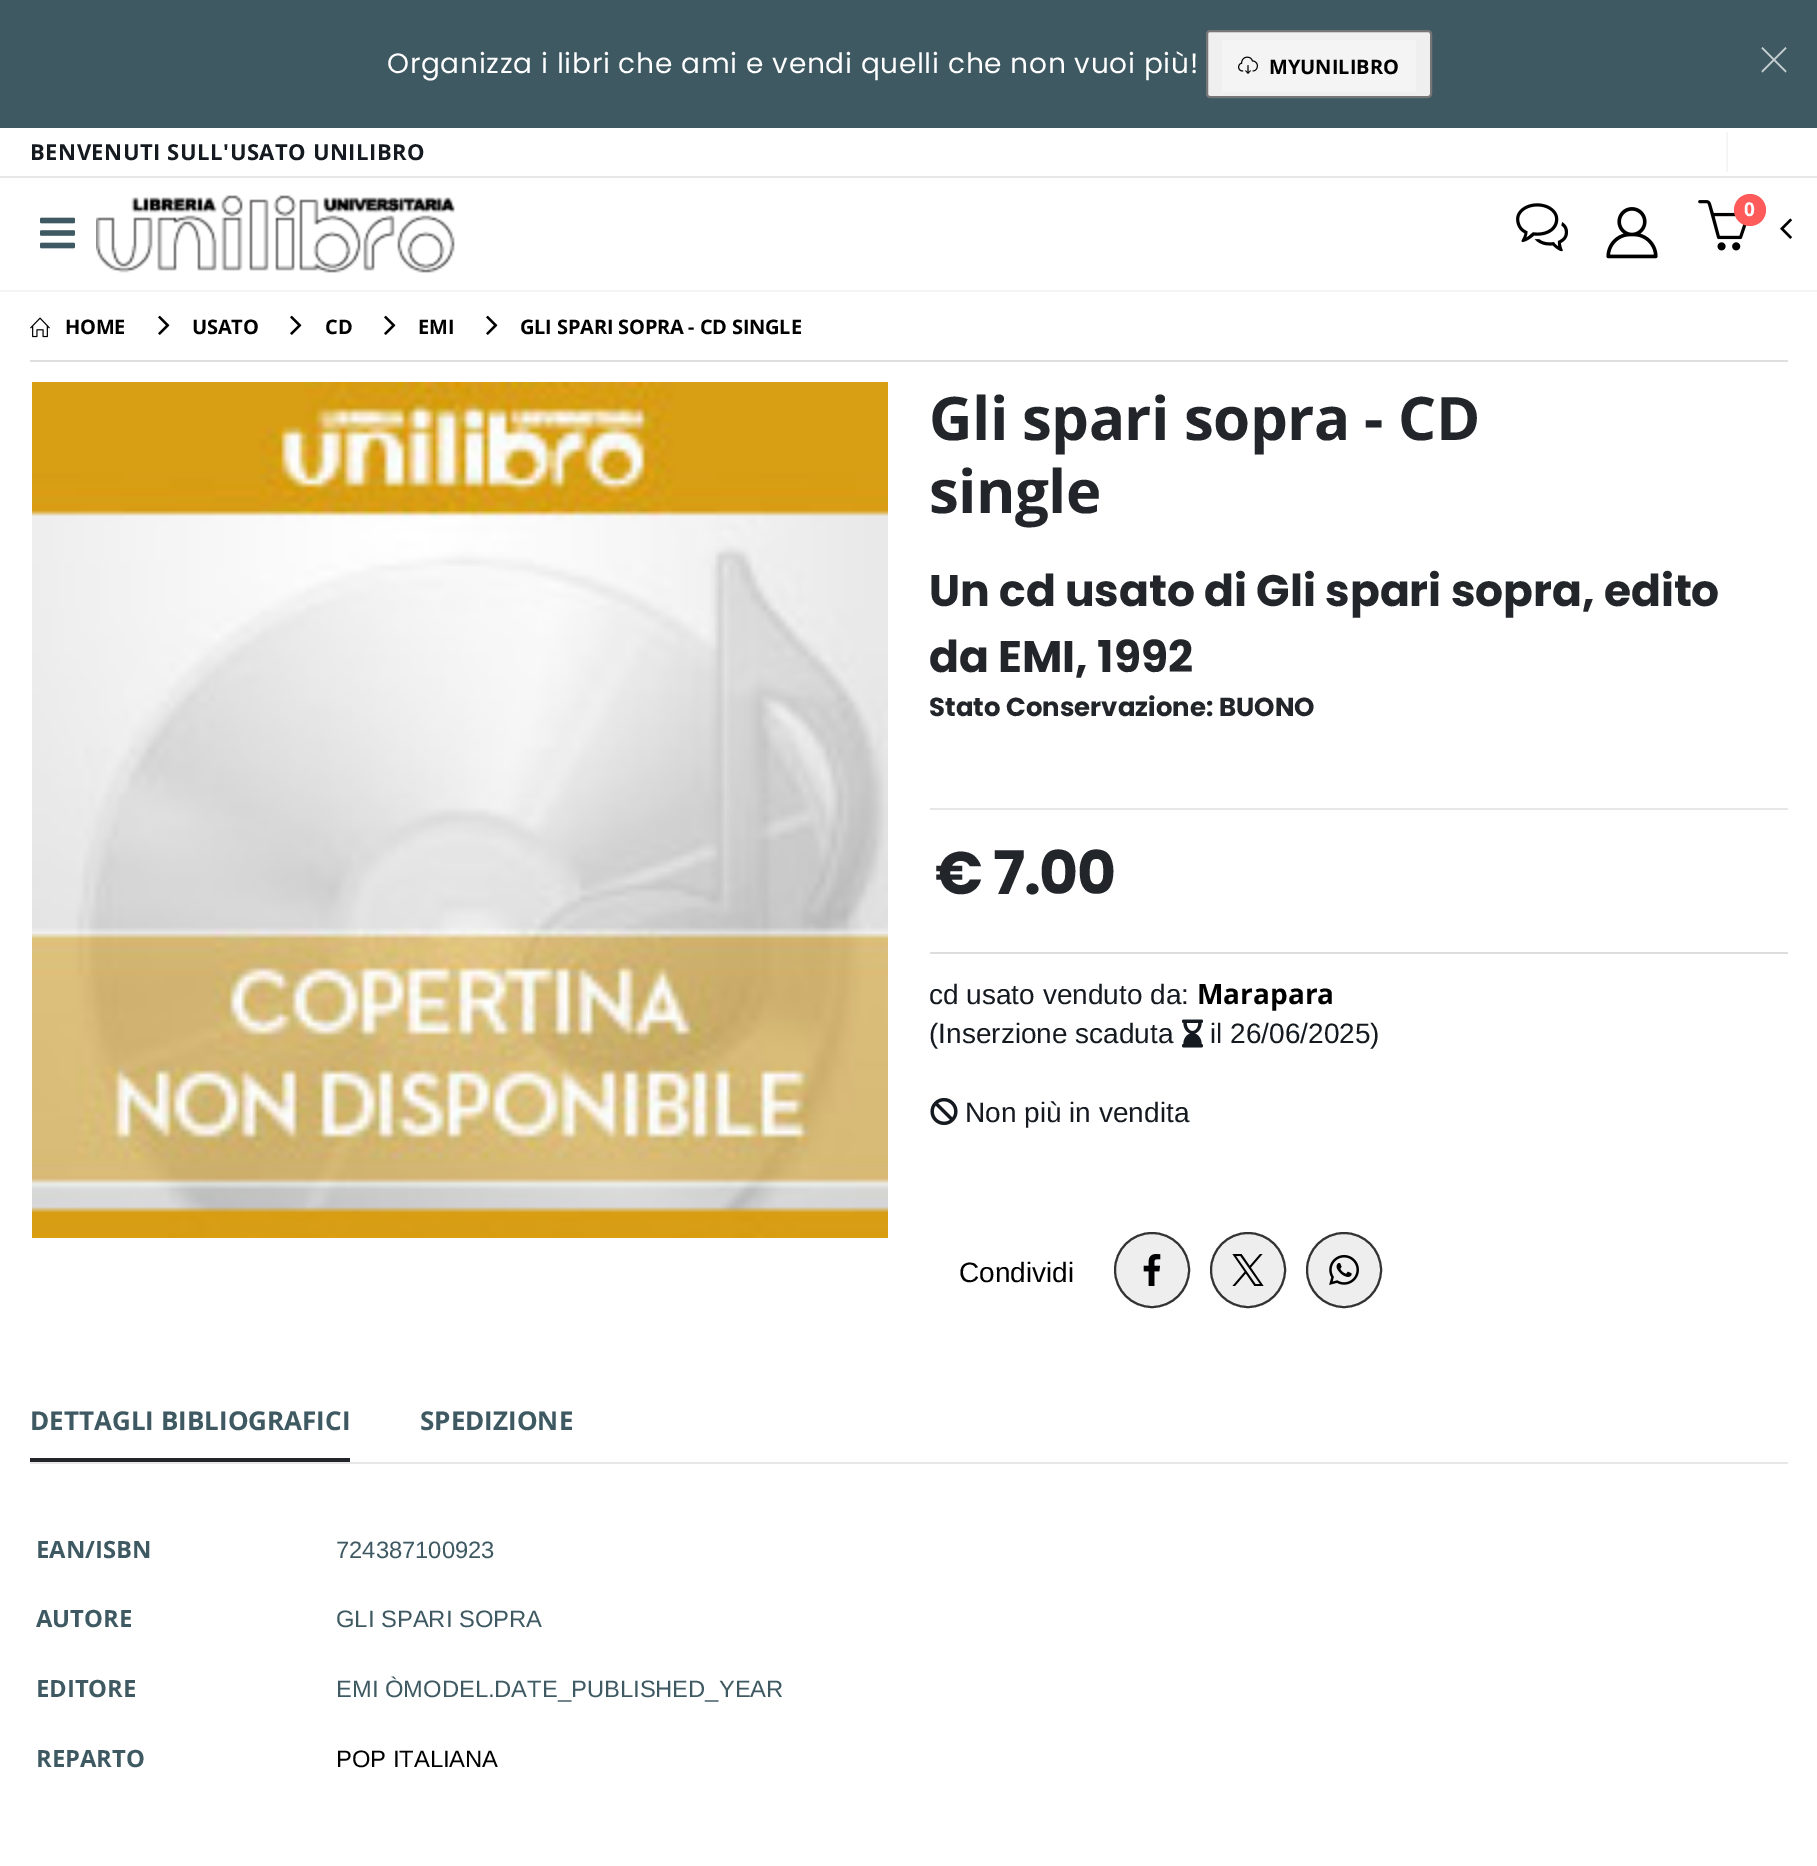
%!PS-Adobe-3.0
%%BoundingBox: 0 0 1817 1866
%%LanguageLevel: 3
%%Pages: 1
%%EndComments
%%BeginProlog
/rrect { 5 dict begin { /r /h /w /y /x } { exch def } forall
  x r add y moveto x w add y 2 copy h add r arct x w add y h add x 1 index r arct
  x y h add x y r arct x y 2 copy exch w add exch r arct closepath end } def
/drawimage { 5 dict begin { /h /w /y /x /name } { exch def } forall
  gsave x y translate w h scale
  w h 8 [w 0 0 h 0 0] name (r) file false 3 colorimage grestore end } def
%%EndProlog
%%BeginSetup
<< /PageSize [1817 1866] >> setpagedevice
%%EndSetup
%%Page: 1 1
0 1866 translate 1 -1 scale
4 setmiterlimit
1 setgray
0 0 1817 1866 rectfill
0.243 0.349 0.384 setrgbcolor
0 0 1817 128 rectfill
0.937 setgray
1207 31 224 66 3 rrect gsave fill grestore
0.463 setgray
2 setlinewidth
stroke
0.957 setgray
1222 40 194 52 rectfill
(images/1.raw) 1238 56 20 18 drawimage
0.773 0.804 0.816 setrgbcolor
newpath 1762.5 47 moveto 1786.5 71 lineto 1785.5 72.5 lineto 1761.5 48.5 lineto closepath fill
newpath 1785.5 47 moveto 1786.5 48.5 lineto 1762.5 72.5 lineto 1761.5 71 lineto closepath fill
0.957 setgray
0 290 1817 2 rectfill
0.961 setgray
1726 132 2 40 rectfill
0.906 setgray
0 176 1817 2 rectfill
(images/2.raw) 40 217 35 32 drawimage
(images/3.raw) 96 195 359 78 drawimage
(images/4.raw) 1516 203 53 49 drawimage
(images/5.raw) 1606 207 52 52 drawimage
(images/6.raw) 1698 200 49 51 drawimage
1 0.357 0.357 setrgbcolor
newpath 1750 210 16 0 360 arc closepath fill
(images/7.raw) 1780 218 12 21 drawimage
0.875 setgray
30 360 1758 2 rectfill
(images/8.raw) 30 317 20 21 drawimage
(images/9.raw) 158 315 12 20 drawimage
(images/9.raw) 290 315 12 20 drawimage
(images/9.raw) 384 315 12 20 drawimage
(images/9.raw) 486 315 12 20 drawimage
(images/10.raw) 32 382 856 856 drawimage
0.906 setgray
930 808 858 2 rectfill
0.867 setgray
930 952 858 2 rectfill
(images/11.raw) 1182 1019 21 29 drawimage
(images/12.raw) 930 1098 28 27 drawimage
0.933 setgray
newpath 1152 1270 37 0 360 arc closepath gsave fill grestore
0.2 setgray
stroke
(images/13.raw) 1143 1254 18 32 drawimage
0.933 setgray
newpath 1248 1270 37 0 360 arc closepath gsave fill grestore
0.2 setgray
stroke
(images/14.raw) 1232 1254 32 32 drawimage
0.933 setgray
newpath 1344 1270 37 0 360 arc closepath gsave fill grestore
0.2 setgray
stroke
(images/15.raw) 1329 1255 30 30 drawimage
0.906 setgray
30 1462 1758 2 rectfill
0.133 0.145 0.161 setrgbcolor
30 1458 320 4 rectfill
/Poppins-Regular [28 0 0 -28 0 0] selectfont
1 setgray
387 73 moveto 0.7 0 (Organizza i libri che ami e vendi quelli che non vuoi più!) ashow
/OpenSans-Bold [20 0 0 -20 0 0] selectfont
0 setgray
1269 74 moveto (MYUNILIBRO) show
/OpenSans-Bold [22 0 0 -22 0 0] selectfont
0.078 0.102 0.122 setrgbcolor
30 160 moveto 0.55 0 (BENVENUTI SULL'USATO UNILIBRO) ashow
/OpenSans-Bold [19 0 0 -19 0 0] selectfont
1 setgray
1744 216 moveto (0) show
/OpenSans-Bold [20 0 0 -20 0 0] selectfont
0 setgray
65 334 moveto -0.2 0 (HOME) ashow
192 334 moveto -0.2 0 (USATO) ashow
325 334 moveto -0.2 0 (CD) ashow
418 334 moveto -0.2 0 (EMI) ashow
520 334 moveto -0.2 0 (GLI SPARI SOPRA - CD SINGLE) ashow
/OpenSans-Bold [60 0 0 -60 0 0] selectfont
0.133 0.145 0.161 setrgbcolor
929 440 moveto -0.6 0 (Gli spari sopra - CD) ashow
929 513 moveto -0.6 0 (single) ashow
/Poppins-Bold [44 0 0 -44 0 0] selectfont
929 606 moveto (Un cd usato di Gli spari sopra, edito) show
929 672 moveto (da EMI, 1992) show
/Poppins-Bold [26 0 0 -26 0 0] selectfont
929 716 moveto (Stato Conservazione: BUONO) show
/Poppins-Bold [60 0 0 -60 0 0] selectfont
935 894 moveto -1.25 0 (€ 7.00) ashow
/LiberationSans-Regular [28 0 0 -28 0 0] selectfont
0.078 0.102 0.122 setrgbcolor
929 1004 moveto (cd usato venduto da:) show
/OpenSans-Bold [28 0 0 -28 0 0] selectfont
0 setgray
1197 1004 moveto (Marapara) show
/LiberationSans-Regular [28 0 0 -28 0 0] selectfont
0.078 0.102 0.122 setrgbcolor
929 1043 moveto (\(Inserzione scaduta) show
1210 1043 moveto (il 26/06/2025\)) show
965 1122 moveto (Non più in vendita) show
0 setgray
959 1282 moveto (Condividi) show
/OpenSans-Bold [26 0 0 -26 0 0] selectfont
0.243 0.349 0.384 setrgbcolor
30 1430 moveto (DETTAGLI BIBLIOGRAFICI) show
420 1430 moveto (SPEDIZIONE) show
/OpenSans-Bold [23.75 0 0 -23.75 0 0] selectfont
36 1558 moveto (EAN/ISBN) show
/LiberationSans-Regular [23.75 0 0 -23.75 0 0] selectfont
336 1558 moveto (724387100923) show
/OpenSans-Bold [23.75 0 0 -23.75 0 0] selectfont
36 1627 moveto (AUTORE) show
/LiberationSans-Regular [23.75 0 0 -23.75 0 0] selectfont
336 1627 moveto (GLI SPARI SOPRA) show
/OpenSans-Bold [23.75 0 0 -23.75 0 0] selectfont
36 1697 moveto (EDITORE) show
/LiberationSans-Regular [23.75 0 0 -23.75 0 0] selectfont
336 1697 moveto (EMI ÒMODEL.DATE_PUBLISHED_YEAR) show
/OpenSans-Bold [23.75 0 0 -23.75 0 0] selectfont
36 1767 moveto (REPARTO) show
/LiberationSans-Regular [23.75 0 0 -23.75 0 0] selectfont
0 setgray
336 1767 moveto (POP ITALIANA) show
showpage
%%EOF
